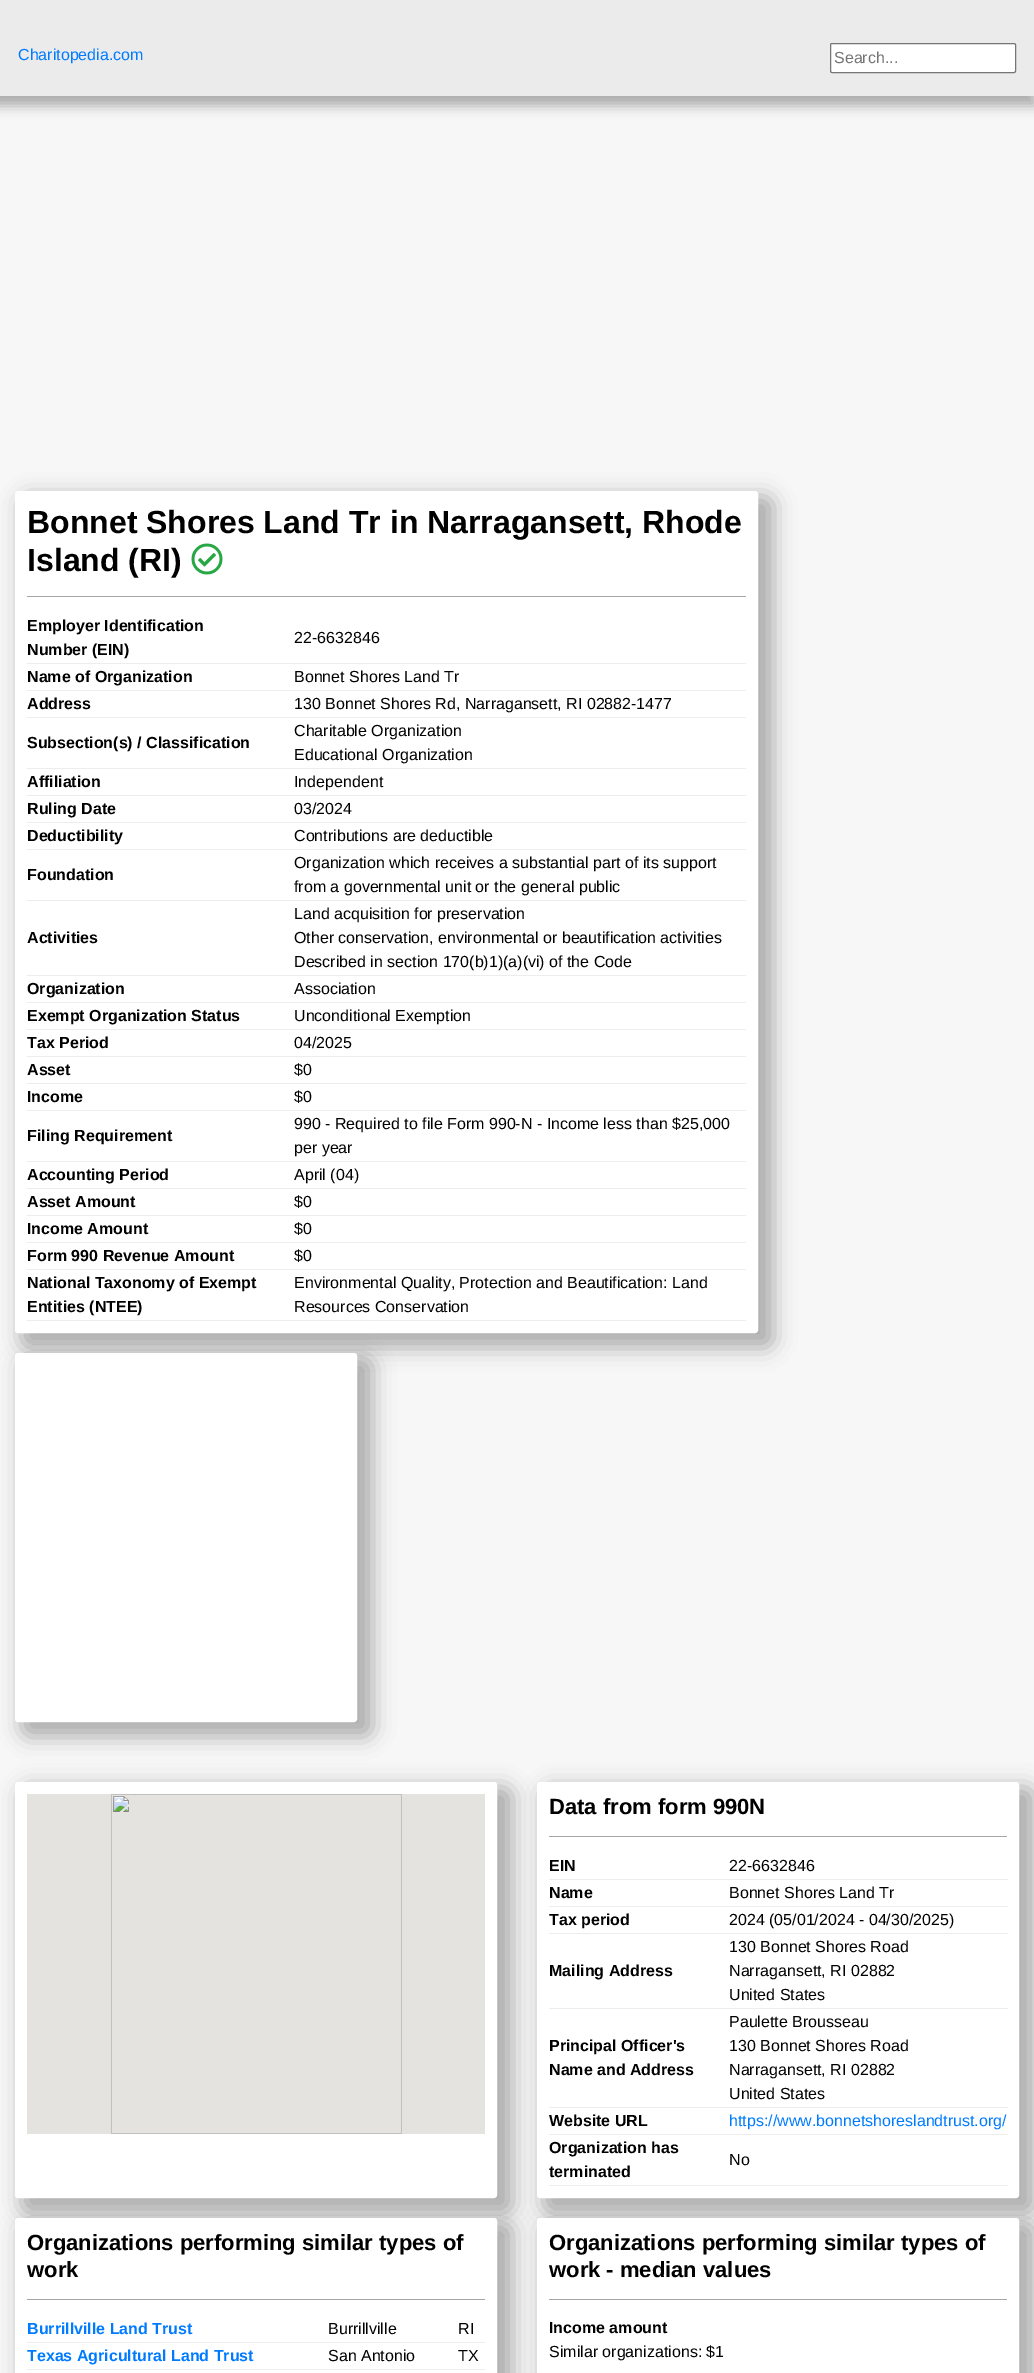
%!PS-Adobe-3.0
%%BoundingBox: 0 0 1034 2373
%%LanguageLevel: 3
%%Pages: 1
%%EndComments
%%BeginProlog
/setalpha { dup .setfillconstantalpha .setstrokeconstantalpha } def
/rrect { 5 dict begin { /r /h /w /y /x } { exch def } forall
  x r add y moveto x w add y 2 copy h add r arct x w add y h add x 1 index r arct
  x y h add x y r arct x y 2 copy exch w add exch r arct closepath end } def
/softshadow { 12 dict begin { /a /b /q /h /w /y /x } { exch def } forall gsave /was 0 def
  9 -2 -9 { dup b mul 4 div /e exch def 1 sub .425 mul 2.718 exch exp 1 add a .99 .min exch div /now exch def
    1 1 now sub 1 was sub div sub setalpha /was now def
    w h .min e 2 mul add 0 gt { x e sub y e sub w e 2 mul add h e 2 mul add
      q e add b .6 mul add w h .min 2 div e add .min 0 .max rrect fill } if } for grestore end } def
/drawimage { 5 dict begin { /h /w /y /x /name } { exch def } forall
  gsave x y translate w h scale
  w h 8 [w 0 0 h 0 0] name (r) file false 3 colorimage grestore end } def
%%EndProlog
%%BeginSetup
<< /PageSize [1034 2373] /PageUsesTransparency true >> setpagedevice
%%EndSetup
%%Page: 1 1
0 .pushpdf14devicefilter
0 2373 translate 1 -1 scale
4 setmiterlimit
0.969 setgray
0 0 1034 2373 rectfill
0 setgray
-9 0 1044 106 0 6 0.3 softshadow
0.922 setgray
0 0 1034 96 rectfill
1 setgray
830.5 43.5 185 29 1.5 rrect gsave fill grestore
0.463 setgray
stroke
0 setgray
21 496 753 852 8 11 0.3 softshadow
1 setgray
16 492 741 840 2 rrect gsave fill grestore
2 setlinewidth
stroke
(images/1.raw) 191 543 32 32 drawimage
0.651 setgray
27 596 719 1 rectfill
0.929 setgray
27 663 719 1 rectfill
27 690 719 1 rectfill
27 717 719 1 rectfill
27 768 719 1 rectfill
27 795 719 1 rectfill
27 822 719 1 rectfill
27 849 719 1 rectfill
27 900 719 1 rectfill
27 975 719 1 rectfill
27 1002 719 1 rectfill
27 1029 719 1 rectfill
27 1056 719 1 rectfill
27 1083 719 1 rectfill
27 1110 719 1 rectfill
27 1161 719 1 rectfill
27 1188 719 1 rectfill
27 1215 719 1 rectfill
27 1242 719 1 rectfill
27 1269 719 1 rectfill
27 1320 719 1 rectfill
0 setgray
21 1358 352 379 8 11 0.3 softshadow
1 setgray
16 1354 340 367 2 rrect gsave fill grestore
stroke
0 setgray
21 1787 492 426 8 11 0.3 softshadow
1 setgray
16 1783 480 414 2 rrect gsave fill grestore
stroke
(images/2.raw) 27 1794 458 340 drawimage
0 setgray
543 1787 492 426 8 11 0.3 softshadow
1 setgray
538 1783 480 414 2 rrect gsave fill grestore
stroke
0.651 setgray
549 1836 458 1 rectfill
0.929 setgray
549 1879 459 1 rectfill
549 1906 459 1 rectfill
549 1933 459 1 rectfill
549 2008 459 1 rectfill
549 2107 459 1 rectfill
549 2134 459 1 rectfill
549 2185 459 1 rectfill
0 setgray
21 2223 492 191 8 11 0.3 softshadow
1 setgray
16 2219 480 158 2 rrect gsave fill grestore
stroke
0.651 setgray
27 2299 458 1 rectfill
0.929 setgray
27 2342 458 1 rectfill
27 2369 458 1 rectfill
0 setgray
543 2223 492 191 8 11 0.3 softshadow
1 setgray
538 2219 480 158 2 rrect gsave fill grestore
stroke
0.651 setgray
549 2299 458 1 rectfill
/LiberationSans-Regular [16 0 0 -16 0 0] selectfont
0 0.482 1 setrgbcolor
18 60 moveto (Charitopedia.com) show
0.459 setgray
834 63 moveto (Search...) show
/LiberationSans-Bold [32 0 0 -32 0 0] selectfont
0 setgray
27 533 moveto (Bonnet Shores Land Tr in Narragansett, Rhode) show
27 571 moveto (Island \(RI\)) show
/LiberationSans-Bold [16 0 0 -16 0 0] selectfont
27 631 moveto (Employer Identification) show
27 655 moveto (Number \(EIN\)) show
/LiberationSans-Regular [16 0 0 -16 0 0] selectfont
294 643 moveto (22-6632846) show
/LiberationSans-Bold [16 0 0 -16 0 0] selectfont
27 682 moveto (Name of Organization) show
/LiberationSans-Regular [16 0 0 -16 0 0] selectfont
294 682 moveto (Bonnet Shores Land Tr) show
/LiberationSans-Bold [16 0 0 -16 0 0] selectfont
27 709 moveto (Address) show
/LiberationSans-Regular [16 0 0 -16 0 0] selectfont
294 709 moveto (130 Bonnet Shores Rd, Narragansett, RI 02882-1477) show
/LiberationSans-Bold [16 0 0 -16 0 0] selectfont
27 748 moveto (Subsection\(s\) / Classification) show
/LiberationSans-Regular [16 0 0 -16 0 0] selectfont
294 736 moveto (Charitable Organization) show
294 760 moveto (Educational Organization) show
/LiberationSans-Bold [16 0 0 -16 0 0] selectfont
27 787 moveto (Affiliation) show
/LiberationSans-Regular [16 0 0 -16 0 0] selectfont
294 787 moveto (Independent) show
/LiberationSans-Bold [16 0 0 -16 0 0] selectfont
27 814 moveto (Ruling Date) show
/LiberationSans-Regular [16 0 0 -16 0 0] selectfont
294 814 moveto (03/2024) show
/LiberationSans-Bold [16 0 0 -16 0 0] selectfont
27 841 moveto (Deductibility) show
/LiberationSans-Regular [16 0 0 -16 0 0] selectfont
294 841 moveto (Contributions are deductible) show
/LiberationSans-Bold [16 0 0 -16 0 0] selectfont
27 880 moveto (Foundation) show
/LiberationSans-Regular [16 0 0 -16 0 0] selectfont
294 868 moveto (Organization which receives a substantial part of its support) show
294 892 moveto (from a governmental unit or the general public) show
/LiberationSans-Bold [16 0 0 -16 0 0] selectfont
27 943 moveto (Activities) show
/LiberationSans-Regular [16 0 0 -16 0 0] selectfont
294 919 moveto (Land acquisition for preservation) show
294 943 moveto (Other conservation, environmental or beautification activities) show
294 967 moveto (Described in section 170\(b\)1\)\(a\)\(vi\) of the Code) show
/LiberationSans-Bold [16 0 0 -16 0 0] selectfont
27 994 moveto (Organization) show
/LiberationSans-Regular [16 0 0 -16 0 0] selectfont
294 994 moveto (Association) show
/LiberationSans-Bold [16 0 0 -16 0 0] selectfont
27 1021 moveto (Exempt Organization Status) show
/LiberationSans-Regular [16 0 0 -16 0 0] selectfont
294 1021 moveto (Unconditional Exemption) show
/LiberationSans-Bold [16 0 0 -16 0 0] selectfont
27 1048 moveto (Tax Period) show
/LiberationSans-Regular [16 0 0 -16 0 0] selectfont
294 1048 moveto (04/2025) show
/LiberationSans-Bold [16 0 0 -16 0 0] selectfont
27 1075 moveto (Asset) show
/LiberationSans-Regular [16 0 0 -16 0 0] selectfont
294 1075 moveto ($0) show
/LiberationSans-Bold [16 0 0 -16 0 0] selectfont
27 1102 moveto (Income) show
/LiberationSans-Regular [16 0 0 -16 0 0] selectfont
294 1102 moveto ($0) show
/LiberationSans-Bold [16 0 0 -16 0 0] selectfont
27 1141 moveto (Filing Requirement) show
/LiberationSans-Regular [16 0 0 -16 0 0] selectfont
294 1129 moveto (990 - Required to file Form 990-N - Income less than $25,000) show
294 1153 moveto (per year) show
/LiberationSans-Bold [16 0 0 -16 0 0] selectfont
27 1180 moveto (Accounting Period) show
/LiberationSans-Regular [16 0 0 -16 0 0] selectfont
294 1180 moveto (April \(04\)) show
/LiberationSans-Bold [16 0 0 -16 0 0] selectfont
27 1207 moveto (Asset Amount) show
/LiberationSans-Regular [16 0 0 -16 0 0] selectfont
294 1207 moveto ($0) show
/LiberationSans-Bold [16 0 0 -16 0 0] selectfont
27 1234 moveto (Income Amount) show
/LiberationSans-Regular [16 0 0 -16 0 0] selectfont
294 1234 moveto ($0) show
/LiberationSans-Bold [16 0 0 -16 0 0] selectfont
27 1261 moveto (Form 990 Revenue Amount) show
/LiberationSans-Regular [16 0 0 -16 0 0] selectfont
294 1261 moveto ($0) show
/LiberationSans-Bold [16 0 0 -16 0 0] selectfont
27 1288 moveto (National Taxonomy of Exempt) show
27 1312 moveto (Entities \(NTEE\)) show
/LiberationSans-Regular [16 0 0 -16 0 0] selectfont
294 1288 moveto (Environmental Quality, Protection and Beautification: Land) show
294 1312 moveto (Resources Conservation) show
/LiberationSans-Bold [22 0 0 -22 0 0] selectfont
549 1814 moveto (Data from form 990N) show
/LiberationSans-Bold [16 0 0 -16 0 0] selectfont
549 1871 moveto (EIN) show
/LiberationSans-Regular [16 0 0 -16 0 0] selectfont
729 1871 moveto (22-6632846) show
/LiberationSans-Bold [16 0 0 -16 0 0] selectfont
549 1898 moveto (Name) show
/LiberationSans-Regular [16 0 0 -16 0 0] selectfont
729 1898 moveto (Bonnet Shores Land Tr) show
/LiberationSans-Bold [16 0 0 -16 0 0] selectfont
549 1925 moveto (Tax period) show
/LiberationSans-Regular [16 0 0 -16 0 0] selectfont
729 1925 moveto (2024 \(05/01/2024 - 04/30/2025\)) show
/LiberationSans-Bold [16 0 0 -16 0 0] selectfont
549 1976 moveto (Mailing Address) show
/LiberationSans-Regular [16 0 0 -16 0 0] selectfont
729 1952 moveto (130 Bonnet Shores Road) show
729 1976 moveto (Narragansett, RI 02882) show
729 2000 moveto (United States) show
/LiberationSans-Bold [16 0 0 -16 0 0] selectfont
549 2051 moveto (Principal Officer's) show
549 2075 moveto (Name and Address) show
/LiberationSans-Regular [16 0 0 -16 0 0] selectfont
729 2027 moveto (Paulette Brousseau) show
729 2051 moveto (130 Bonnet Shores Road) show
729 2075 moveto (Narragansett, RI 02882) show
729 2099 moveto (United States) show
/LiberationSans-Bold [16 0 0 -16 0 0] selectfont
549 2126 moveto (Website URL) show
/LiberationSans-Regular [16 0 0 -16 0 0] selectfont
0 0.482 1 setrgbcolor
729 2126 moveto (https://www.bonnetshoreslandtrust.org/) show
/LiberationSans-Bold [16 0 0 -16 0 0] selectfont
0 setgray
549 2153 moveto (Organization has) show
549 2177 moveto (terminated) show
/LiberationSans-Regular [16 0 0 -16 0 0] selectfont
729 2165 moveto (No) show
/LiberationSans-Bold [22 0 0 -22 0 0] selectfont
27 2250 moveto (Organizations performing similar types of) show
27 2277 moveto (work) show
/LiberationSans-Bold [16 0 0 -16 0 0] selectfont
0 0.482 1 setrgbcolor
27 2334 moveto (Burrillville Land Trust) show
/LiberationSans-Regular [16 0 0 -16 0 0] selectfont
0 setgray
328 2334 moveto (Burrillville) show
458 2334 moveto (RI) show
/LiberationSans-Bold [16 0 0 -16 0 0] selectfont
0 0.482 1 setrgbcolor
27 2361 moveto (Texas Agricultural Land Trust) show
/LiberationSans-Regular [16 0 0 -16 0 0] selectfont
0 setgray
328 2361 moveto (San Antonio) show
458 2361 moveto (TX) show
/LiberationSans-Bold [22 0 0 -22 0 0] selectfont
549 2250 moveto (Organizations performing similar types of) show
549 2277 moveto (work - median values) show
/LiberationSans-Bold [16 0 0 -16 0 0] selectfont
549 2333 moveto (Income amount) show
/LiberationSans-Regular [16 0 0 -16 0 0] selectfont
549 2357 moveto (Similar organizations: $1) show
.poppdf14devicefilter showpage
%%EOF
